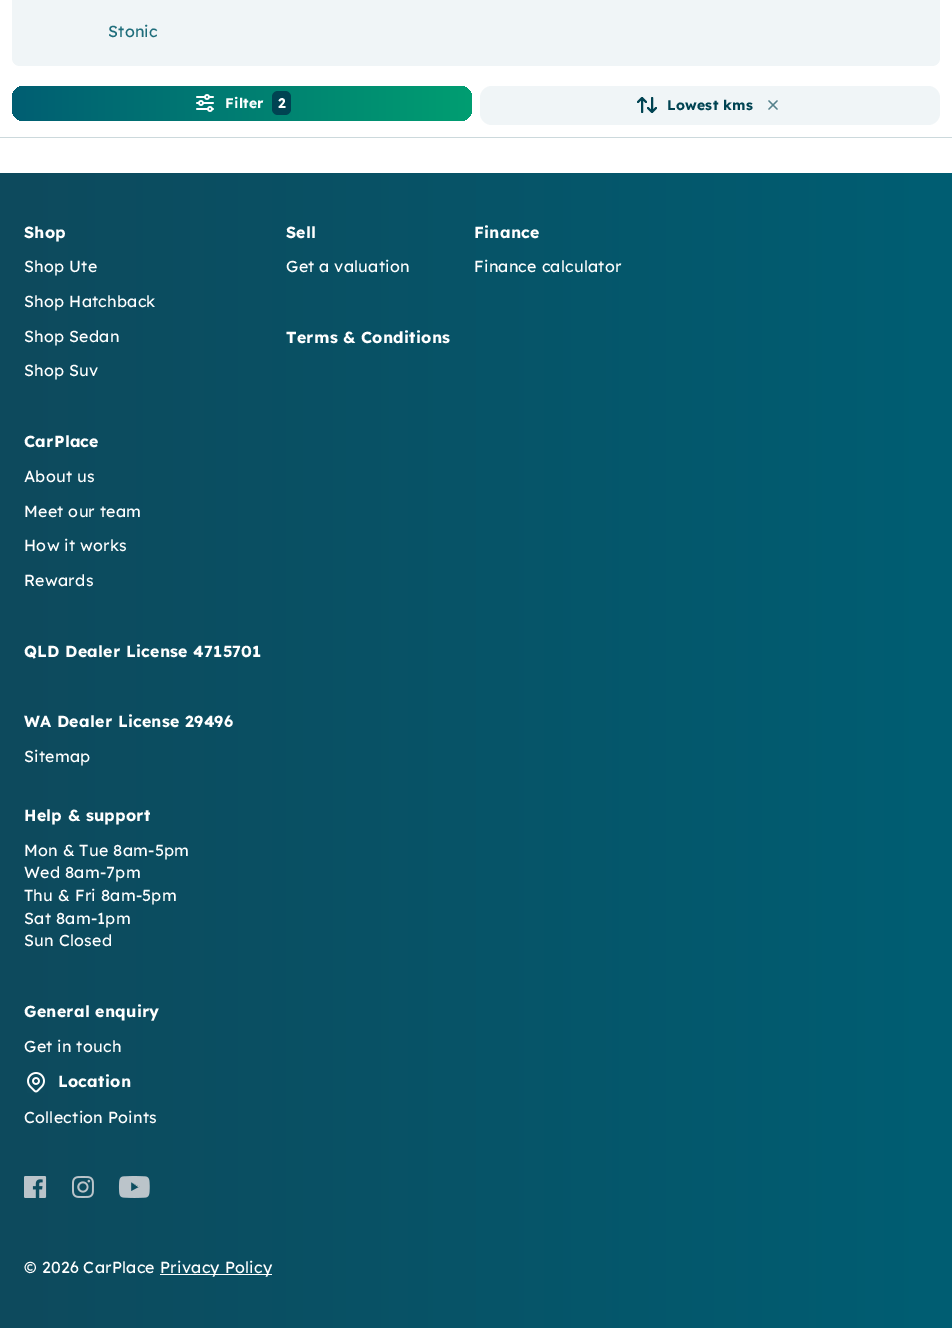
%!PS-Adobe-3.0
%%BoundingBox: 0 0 952 1328
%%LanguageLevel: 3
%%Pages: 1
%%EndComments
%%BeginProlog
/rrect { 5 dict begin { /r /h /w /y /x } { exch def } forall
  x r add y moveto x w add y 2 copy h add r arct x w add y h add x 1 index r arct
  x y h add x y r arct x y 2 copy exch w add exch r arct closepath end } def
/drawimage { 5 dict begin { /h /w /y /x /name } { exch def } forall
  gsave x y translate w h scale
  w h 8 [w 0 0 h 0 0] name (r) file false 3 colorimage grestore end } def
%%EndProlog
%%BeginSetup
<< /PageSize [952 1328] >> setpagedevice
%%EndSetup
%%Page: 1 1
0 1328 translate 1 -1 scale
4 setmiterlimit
1 setgray
0 0 952 1328 rectfill
0.941 0.961 0.969 setrgbcolor
12 -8 928 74 8 rrect fill
gsave 12 86 460 35 12 rrect clip newpath
<< /ShadingType 2 /ColorSpace /DeviceRGB /Coords [12 104 472 103] /Extend [true true] /Function << /FunctionType 2 /Domain [0 1] /C0 [0 0.369 0.451] /C1 [0 0.62 0.443] /N 1 >> >> shfill grestore
(images/1.raw) 196 94 18 18 drawimage
0 0.263 0.322 setrgbcolor
272 91 19 24 6 rrect fill
0.941 0.961 0.969 setrgbcolor
480 86 460 39 12 rrect fill
0 0.263 0.322 setrgbcolor
2 setlinewidth
1 setlinecap
1 setlinejoin
newpath 638 102 moveto 642 98 lineto 646 102 lineto 642 98 moveto 642 112 lineto 656 108 moveto 652 112 lineto 648 108 lineto 652 112 moveto 652 98 lineto stroke
0.329 0.506 0.545 setrgbcolor
1.3 setlinewidth
newpath 777 101 moveto 769 109 lineto 769 101 moveto 777 109 lineto stroke
0.8 0.851 0.863 setrgbcolor
0 137 952 1 rectfill
gsave newpath 0 173 moveto 952 173 lineto 952 1328 lineto 0 1328 lineto closepath clip newpath
<< /ShadingType 2 /ColorSpace /DeviceRGB /Coords [0 751 952 751] /Extend [true true] /Function << /FunctionType 2 /Domain [0 1] /C0 [0.055 0.29 0.365] /C1 [0 0.369 0.451] /N 1 >> >> shfill grestore
(images/2.raw) 27 1072 18 21 drawimage
(images/3.raw) 24 1176 23 22 drawimage
(images/4.raw) 71 1176 23 22 drawimage
(images/5.raw) 118 1176 32 22 drawimage
1 setgray
160 1274 112 1 rectfill
/LexendDeca-Regular [16 0 0 -16 0 0] selectfont
0.118 0.427 0.482 setrgbcolor
108 37 moveto 0.25 0 (Stonic) ashow
/LexendDeca-Bold [14 0 0 -14 0 0] selectfont
1 setgray
225 108 moveto 0.25 0 (Filter) ashow
278 108 moveto 0.25 0 (2) ashow
0 0.263 0.322 setrgbcolor
667 110 moveto 0.25 0 (Lowest kms) ashow
/LexendDeca-Bold [16 0 0 -16 0 0] selectfont
1 setgray
24 238 moveto 0.25 0 (Shop) ashow
/LexendDeca-Regular [16 0 0 -16 0 0] selectfont
24 272 moveto 0.25 0 (Shop Ute) ashow
24 307 moveto 0.25 0 (Shop Hatchback) ashow
24 342 moveto 0.25 0 (Shop Sedan) ashow
24 376 moveto 0.25 0 (Shop Suv) ashow
/LexendDeca-Bold [16 0 0 -16 0 0] selectfont
24 447 moveto 0.25 0 (CarPlace) ashow
/LexendDeca-Regular [16 0 0 -16 0 0] selectfont
24 482 moveto 0.25 0 (About us) ashow
24 517 moveto 0.25 0 (Meet our team) ashow
24 551 moveto 0.25 0 (How it works) ashow
24 586 moveto 0.25 0 (Rewards) ashow
/LexendDeca-Bold [16 0 0 -16 0 0] selectfont
24 657 moveto 0.25 0 (QLD Dealer License 4715701) ashow
24 727 moveto 0.25 0 (WA Dealer License 29496) ashow
/LexendDeca-Regular [16 0 0 -16 0 0] selectfont
24 762 moveto 0.25 0 (Sitemap) ashow
/LexendDeca-Bold [16 0 0 -16 0 0] selectfont
286 238 moveto 0.25 0 (Sell) ashow
/LexendDeca-Regular [16 0 0 -16 0 0] selectfont
286 272 moveto 0.25 0 (Get a valuation) ashow
/LexendDeca-Bold [16 0 0 -16 0 0] selectfont
286 343 moveto 0.25 0 (Terms & Conditions) ashow
474 238 moveto 0.25 0 (Finance) ashow
/LexendDeca-Regular [16 0 0 -16 0 0] selectfont
474 272 moveto 0.25 0 (Finance calculator) ashow
/LexendDeca-Bold [16 0 0 -16 0 0] selectfont
24 821 moveto 0.25 0 (Help & support) ashow
/LexendDeca-Regular [16 0 0 -16 0 0] selectfont
24 856 moveto 0.25 0 (Mon & Tue 8am-5pm) ashow
24 878 moveto 0.25 0 (Wed 8am-7pm) ashow
24 901 moveto 0.25 0 (Thu & Fri 8am-5pm) ashow
24 924 moveto 0.25 0 (Sat 8am-1pm) ashow
24 946 moveto 0.25 0 (Sun Closed) ashow
/LexendDeca-Bold [16 0 0 -16 0 0] selectfont
24 1017 moveto 0.25 0 (General enquiry) ashow
/LexendDeca-Regular [16 0 0 -16 0 0] selectfont
24 1052 moveto 0.25 0 (Get in touch) ashow
/LexendDeca-Bold [16 0 0 -16 0 0] selectfont
58 1087 moveto 0.25 0 (Location) ashow
/LexendDeca-Regular [16 0 0 -16 0 0] selectfont
24 1123 moveto 0.25 0 (Collection Points) ashow
24 1273 moveto 0.25 0 (© 2026 CarPlace) ashow
160 1273 moveto 0.25 0 (Privacy Policy) ashow
showpage
%%EOF
